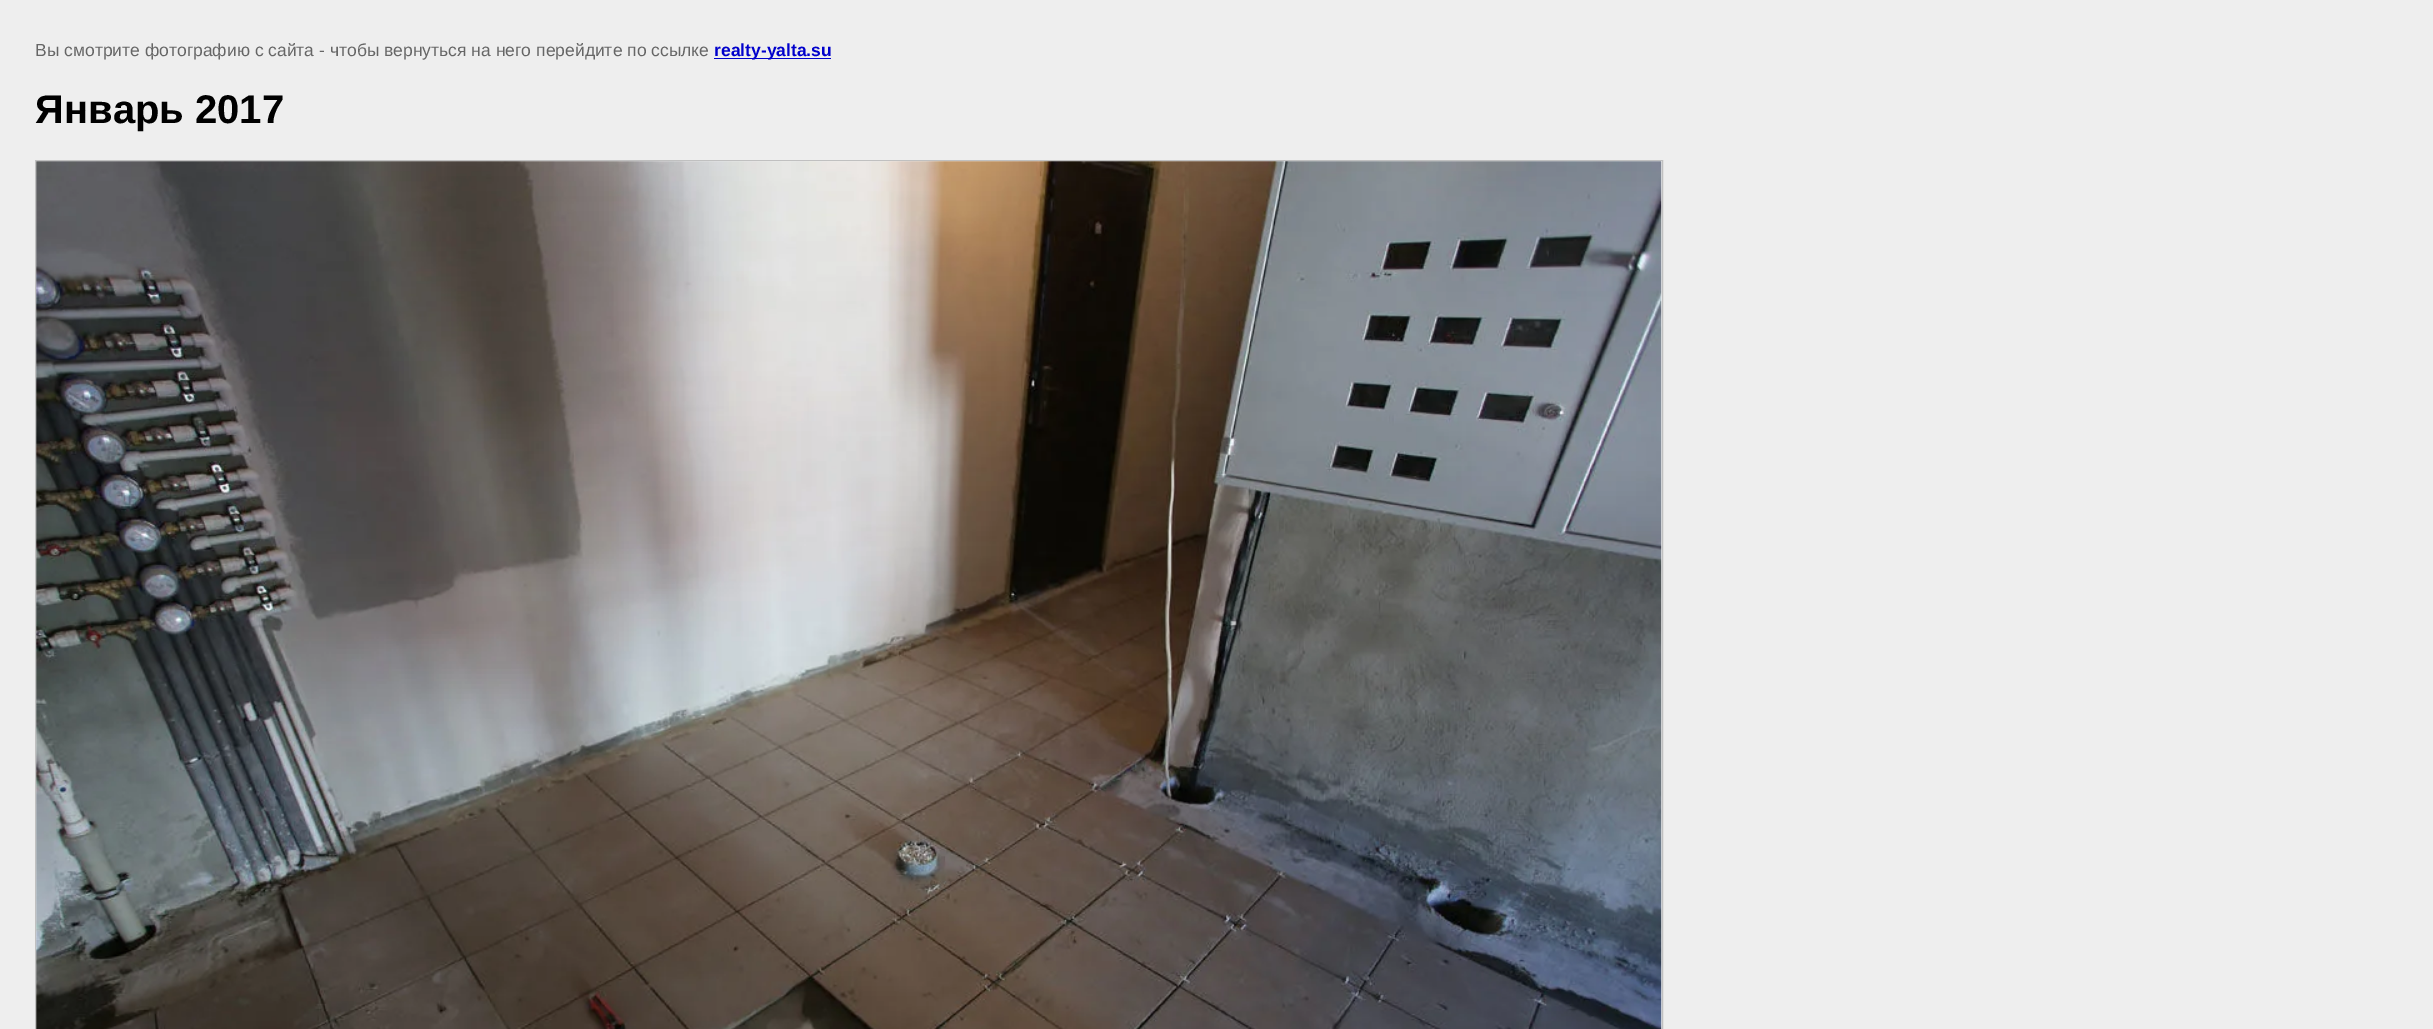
%!PS-Adobe-3.0
%%BoundingBox: 0 0 2433 1029
%%LanguageLevel: 3
%%Pages: 1
%%EndComments
%%BeginProlog
/drawimage { 5 dict begin { /h /w /y /x /name } { exch def } forall
  gsave x y translate w h scale
  w h 8 [w 0 0 h 0 0] name (r) file false 3 colorimage grestore end } def
%%EndProlog
%%BeginSetup
<< /PageSize [2433 1029] >> setpagedevice
%%EndSetup
%%Page: 1 1
0 1029 translate 1 -1 scale
4 setmiterlimit
0.933 setgray
0 0 2433 1029 rectfill
0 0 0.8 setrgbcolor
714 58 117 1 rectfill
0.753 setgray
35.5 160.5 1627 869 rectstroke
(images/1.raw) 36 161 1626 868 drawimage
/LiberationSans-Regular [17.5 0 0 -17.5 0 0] selectfont
0.4 setgray
35 56 moveto (Вы смотрите фотографию с сайта - чтобы вернуться на него перейдите по ссылке) show
/LiberationSans-Bold [17.5 0 0 -17.5 0 0] selectfont
0 0 0.8 setrgbcolor
714 56 moveto (realty-yalta.su) show
/LiberationSans-Bold [40 0 0 -40 0 0] selectfont
0 setgray
35 123 moveto (Январь 2017) show
showpage
%%EOF
